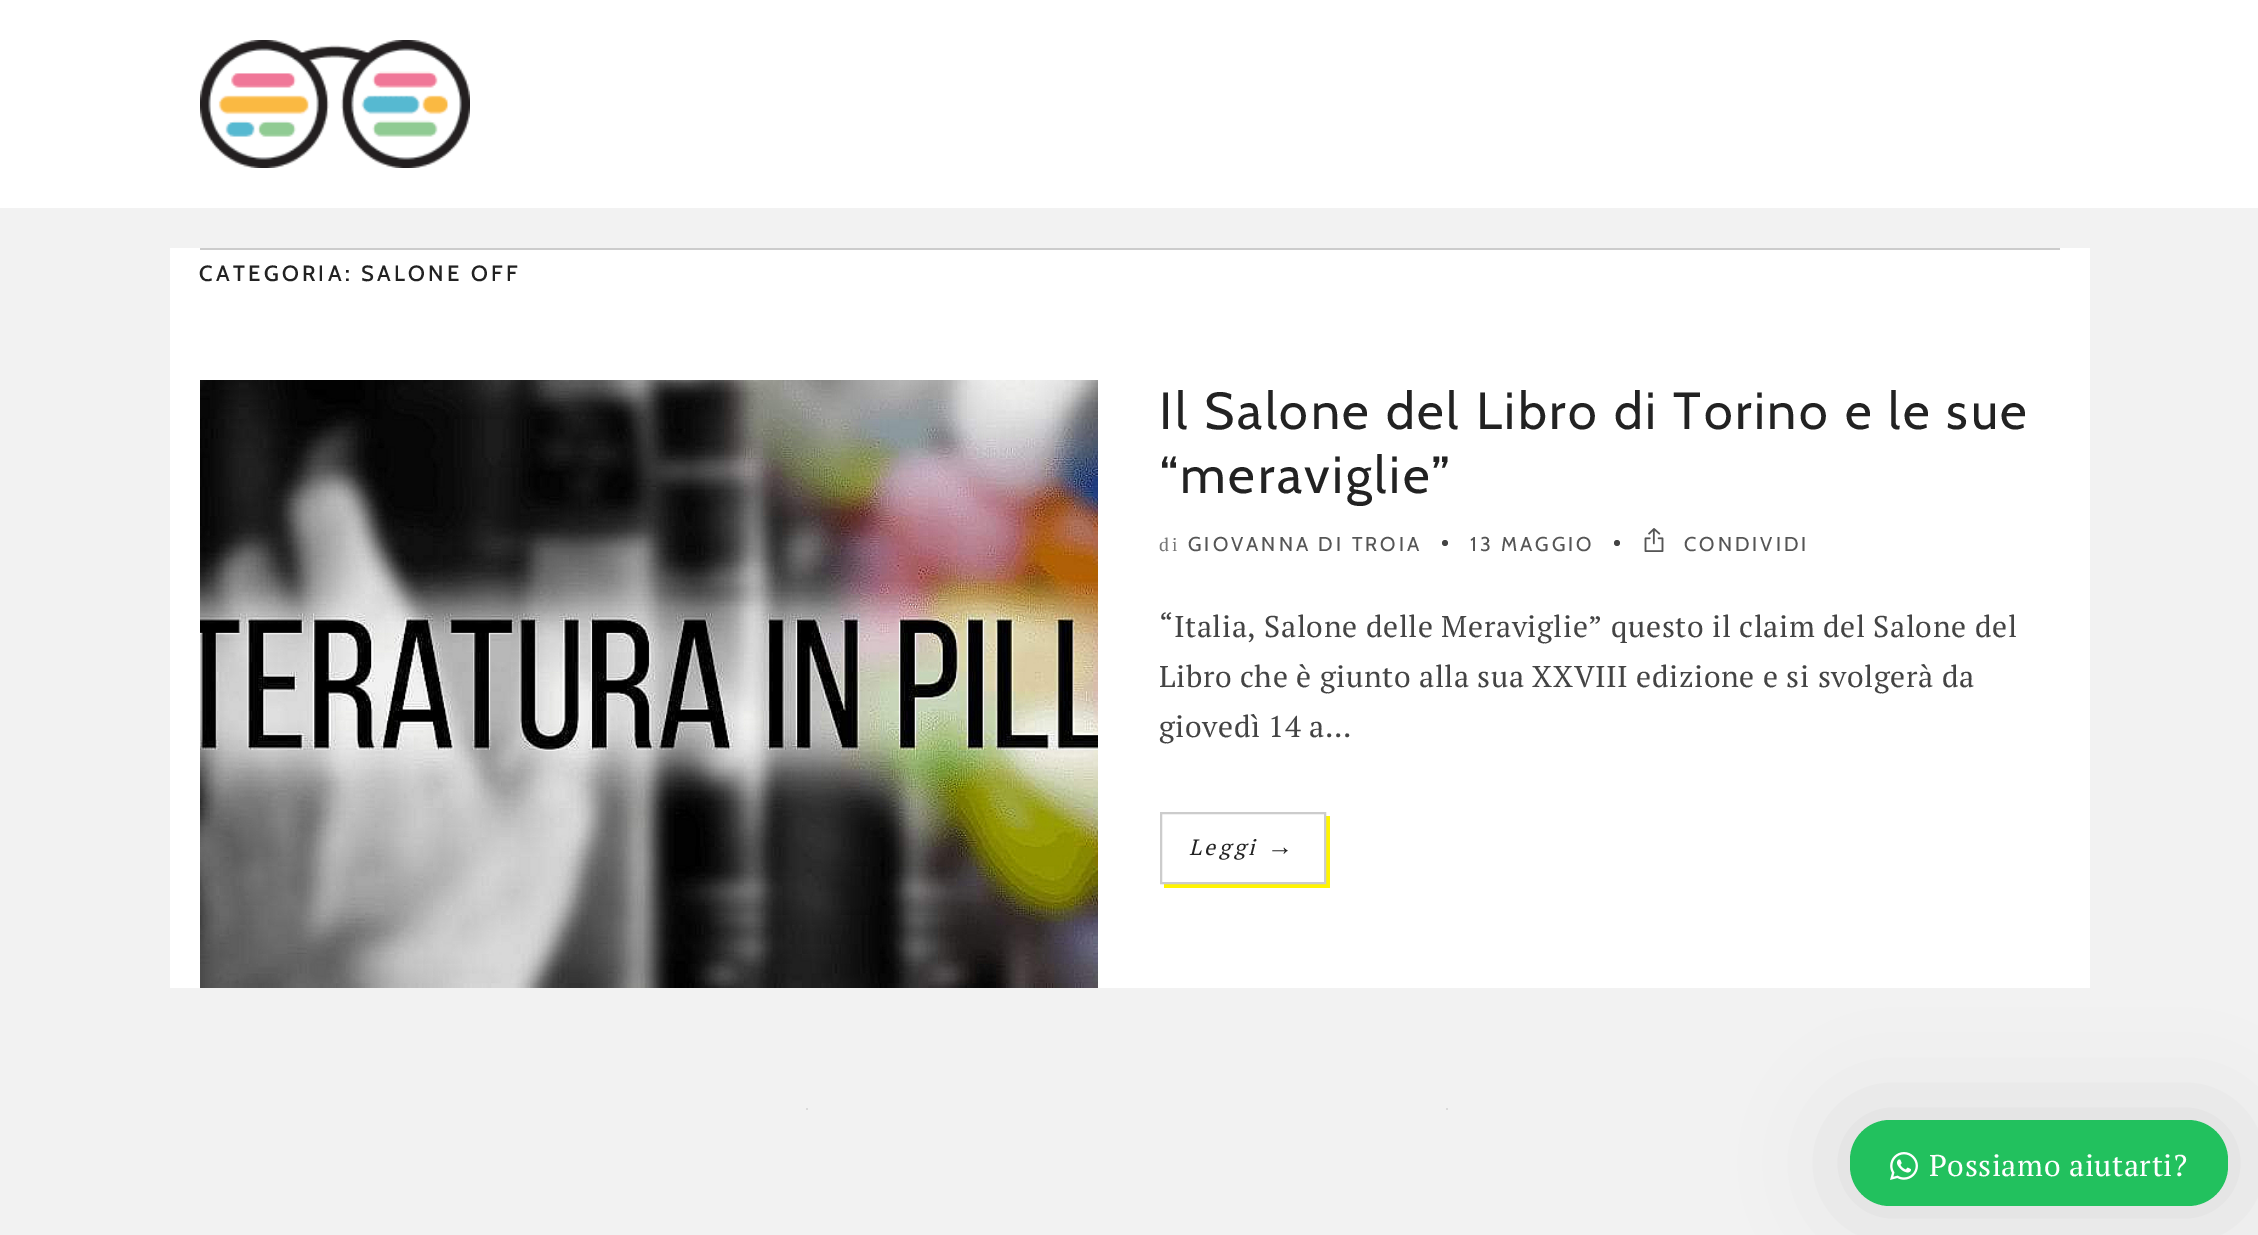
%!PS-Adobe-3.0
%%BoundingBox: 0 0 2258 1235
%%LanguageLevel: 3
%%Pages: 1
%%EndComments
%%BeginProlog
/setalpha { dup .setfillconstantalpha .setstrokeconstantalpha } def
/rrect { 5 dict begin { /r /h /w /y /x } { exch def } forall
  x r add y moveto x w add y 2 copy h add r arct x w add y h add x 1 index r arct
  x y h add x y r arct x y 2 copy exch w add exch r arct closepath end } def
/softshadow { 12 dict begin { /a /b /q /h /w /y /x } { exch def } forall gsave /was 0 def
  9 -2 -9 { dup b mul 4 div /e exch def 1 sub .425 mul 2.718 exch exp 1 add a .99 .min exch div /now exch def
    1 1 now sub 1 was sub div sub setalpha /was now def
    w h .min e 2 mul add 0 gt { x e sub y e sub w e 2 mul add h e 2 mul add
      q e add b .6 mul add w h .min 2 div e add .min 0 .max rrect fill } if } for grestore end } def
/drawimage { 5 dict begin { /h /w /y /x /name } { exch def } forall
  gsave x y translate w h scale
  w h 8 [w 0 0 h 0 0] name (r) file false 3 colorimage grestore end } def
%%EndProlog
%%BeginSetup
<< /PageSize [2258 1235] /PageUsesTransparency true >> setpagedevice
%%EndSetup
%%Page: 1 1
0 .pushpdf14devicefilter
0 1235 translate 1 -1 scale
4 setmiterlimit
0.949 setgray
0 0 2258 1235 rectfill
1 setgray
0 0 2258 208 rectfill
(images/1.raw) 200 40 270 128 drawimage
170 248 1920 740 rectfill
0.8 setgray
200 248 1860 2 rectfill
(images/2.raw) 200 380 898 608 drawimage
0.267 setgray
newpath 1445 543 3 0 360 arc closepath fill
newpath 1617 543 3 0 360 arc closepath fill
(images/3.raw) 1644 528 20 24 drawimage
1 0.957 0 setrgbcolor
newpath 1164 884 moveto 1164 888 lineto 1330 888 lineto 1330 816 lineto 1326 816 lineto 1326 884 lineto closepath fill
0.8 setgray
2 setlinewidth
1161 813 164 70 rectstroke
0.855 setgray
806 1108 2 2 rectfill
1446 1108 2 2 rectfill
0 setgray
1850 1120 378 86 40 50 0.1 softshadow
0.133 0.757 0.369 setrgbcolor
1850 1120 378 86 40 rrect fill
(images/4.raw) 1890 1152 28 28 drawimage
/Cabin-Medium [22 0 0 -22 0 0] selectfont
0.133 setgray
199 281 moveto 3.3 0 (CATEGORIA: SALONE OFF) ashow
/Cabin-Regular [52 0 0 -52 0 0] selectfont
1159 429 moveto 2.6 0 (Il Salone del Libro di Torino e le sue) ashow
1159 493 moveto 2.6 0 (“meraviglie”) ashow
/PTSerif-Regular [18 0 0 -18 0 0] selectfont
0.467 setgray
1159 551 moveto 3 0 (di) ashow
/Cabin-Regular [20 0 0 -20 0 0] selectfont
0.333 setgray
1188 551 moveto 3 0 (GIOVANNA DI TROIA) ashow
1470 551 moveto 3 0 (13 MAGGIO) ashow
1684 551 moveto 3 0 (CONDIVIDI) ashow
/PTSerif-Regular [30 0 0 -30 0 0] selectfont
0.267 setgray
1159 637 moveto 0.6 0 (“Italia, Salone delle Meraviglie” questo il claim del Salone del) ashow
1159 687 moveto 0.6 0 (Libro che è giunto alla sua XXVIII edizione e si svolgerà da) ashow
1159 737 moveto 0.6 0 (giovedì 14 a...) ashow
/PTSerif-Italic [22 0 0 -22 0 0] selectfont
0.133 setgray
1189 855 moveto 3.3 0 (Leggi) ashow
/LiberationSerif-Italic [26 0 0 -26 0 0] selectfont
1267 855 moveto 3.3 0 (→) ashow
/PTSerif-Regular [30 0 0 -30 0 0] selectfont
1 setgray
1929 1176 moveto 0.6 0 (Possiamo aiutarti?) ashow
.poppdf14devicefilter showpage
%%EOF
